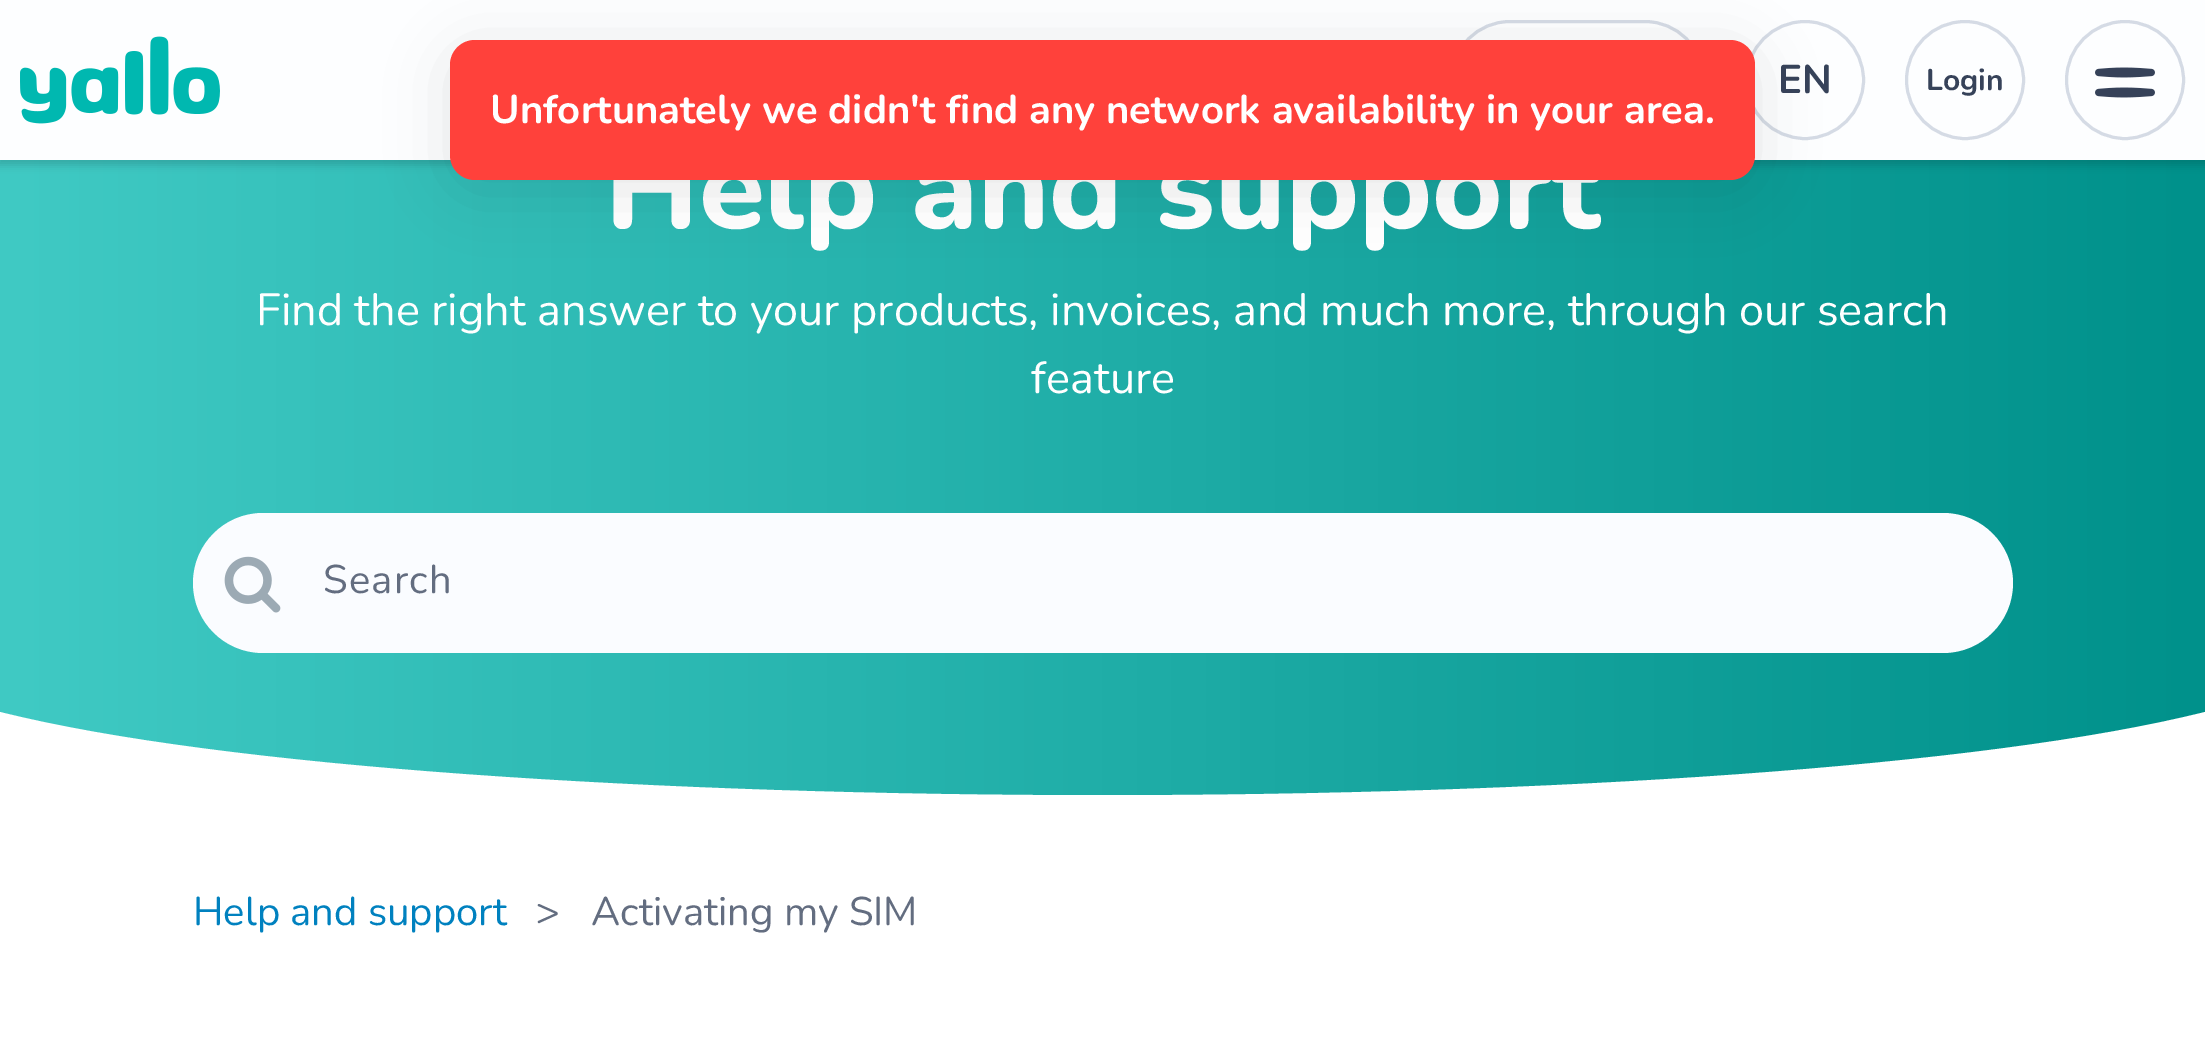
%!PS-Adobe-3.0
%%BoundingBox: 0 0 2205 1045
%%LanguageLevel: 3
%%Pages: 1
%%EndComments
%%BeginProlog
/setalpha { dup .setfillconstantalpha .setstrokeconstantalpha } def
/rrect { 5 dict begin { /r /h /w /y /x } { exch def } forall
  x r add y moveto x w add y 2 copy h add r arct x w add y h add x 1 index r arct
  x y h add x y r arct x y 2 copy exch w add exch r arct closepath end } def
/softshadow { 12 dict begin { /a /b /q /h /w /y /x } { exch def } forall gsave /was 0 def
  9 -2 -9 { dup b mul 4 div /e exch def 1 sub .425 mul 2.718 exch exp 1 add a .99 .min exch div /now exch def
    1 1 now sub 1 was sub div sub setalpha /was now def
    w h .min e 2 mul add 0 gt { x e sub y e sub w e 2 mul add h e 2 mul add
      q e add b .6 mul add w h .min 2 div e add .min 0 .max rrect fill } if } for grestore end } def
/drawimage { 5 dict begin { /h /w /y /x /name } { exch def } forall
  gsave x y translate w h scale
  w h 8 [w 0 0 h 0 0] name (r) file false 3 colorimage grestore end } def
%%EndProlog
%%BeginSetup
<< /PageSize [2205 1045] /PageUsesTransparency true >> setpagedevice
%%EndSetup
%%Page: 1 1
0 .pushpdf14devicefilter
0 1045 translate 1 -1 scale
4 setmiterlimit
1 setgray
0 0 2205 1045 rectfill
gsave newpath 0 160 moveto 2205 160 lineto 2205 796 lineto 0 796 lineto closepath clip newpath
<< /ShadingType 2 /ColorSpace /DeviceRGB /Coords [0 410 2205 410] /Extend [true true] /Function << /FunctionType 2 /Domain [0 1] /C0 [0.251 0.792 0.769] /C1 [0 0.569 0.545] /N 1 >> >> shfill grestore
0 setgray
-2 0 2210 165 0 4 0.15 softshadow
0.98 0.988 1 setrgbcolor
193 513 1820 140 70 rrect fill
(images/3.raw) 224 556 57 57 drawimage
gsave
0 580 2205 243 rectclip
1 setgray
newpath 2205 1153 moveto 2205 712 lineto 1764 823 441 823 0 712 curveto 0 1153 lineto closepath fill
grestore
/Nunito-ExtraBold [120 0 0 -120 0 0] selectfont
1 setgray
605 228 moveto (Help and support) show
0.992 0.996 1 setrgbcolor
0 0 2205 160 rectfill
0.835 0.859 0.898 setrgbcolor
3 setlinewidth
newpath 1805 80 58.5 0 360 arc closepath stroke
/Nunito-Bold [40 0 0 -40 0 0] selectfont
0.212 0.259 0.349 setrgbcolor
1778 93 moveto (EN) show
0.835 0.859 0.898 setrgbcolor
newpath 2125 80 58.5 0 360 arc closepath stroke
(images/2.raw) 2095 67 60 31 drawimage
(images/1.raw) 20 36 200 88 drawimage
newpath 1965 80 58.5 0 360 arc closepath stroke
/Nunito-Bold [30 0 0 -30 0 0] selectfont
0.212 0.259 0.349 setrgbcolor
1926 90 moveto (Login) show
0.835 0.859 0.898 setrgbcolor
1451.5 21.5 252 117 58.5 rrect stroke
/Nunito-Regular [45 0 0 -45 0 0] selectfont
1 setgray
256 325 moveto (Find the right answer to your products, invoices, and much more, through our search) show
1031 393 moveto (feature) show
/Nunito-Regular [40 0 0 -40 0 0] selectfont
0.388 0.427 0.502 setrgbcolor
323 593 moveto 1.25 0 (Search) ashow
0 0.506 0.749 setrgbcolor
193 925 moveto (Help and support) show
0.388 0.427 0.502 setrgbcolor
536 925 moveto (>) show
591 925 moveto (Activating my SIM) show
0 setgray
450 50 1305 140 25 30 0.1 softshadow
1 0.255 0.231 setrgbcolor
450 40 1305 140 25 rrect fill
/Nunito-Bold [40 0 0 -40 0 0] selectfont
1 setgray
490 123 moveto (Unfortunately we didn't find any network availability in your area.) show
.poppdf14devicefilter showpage
%%EOF
